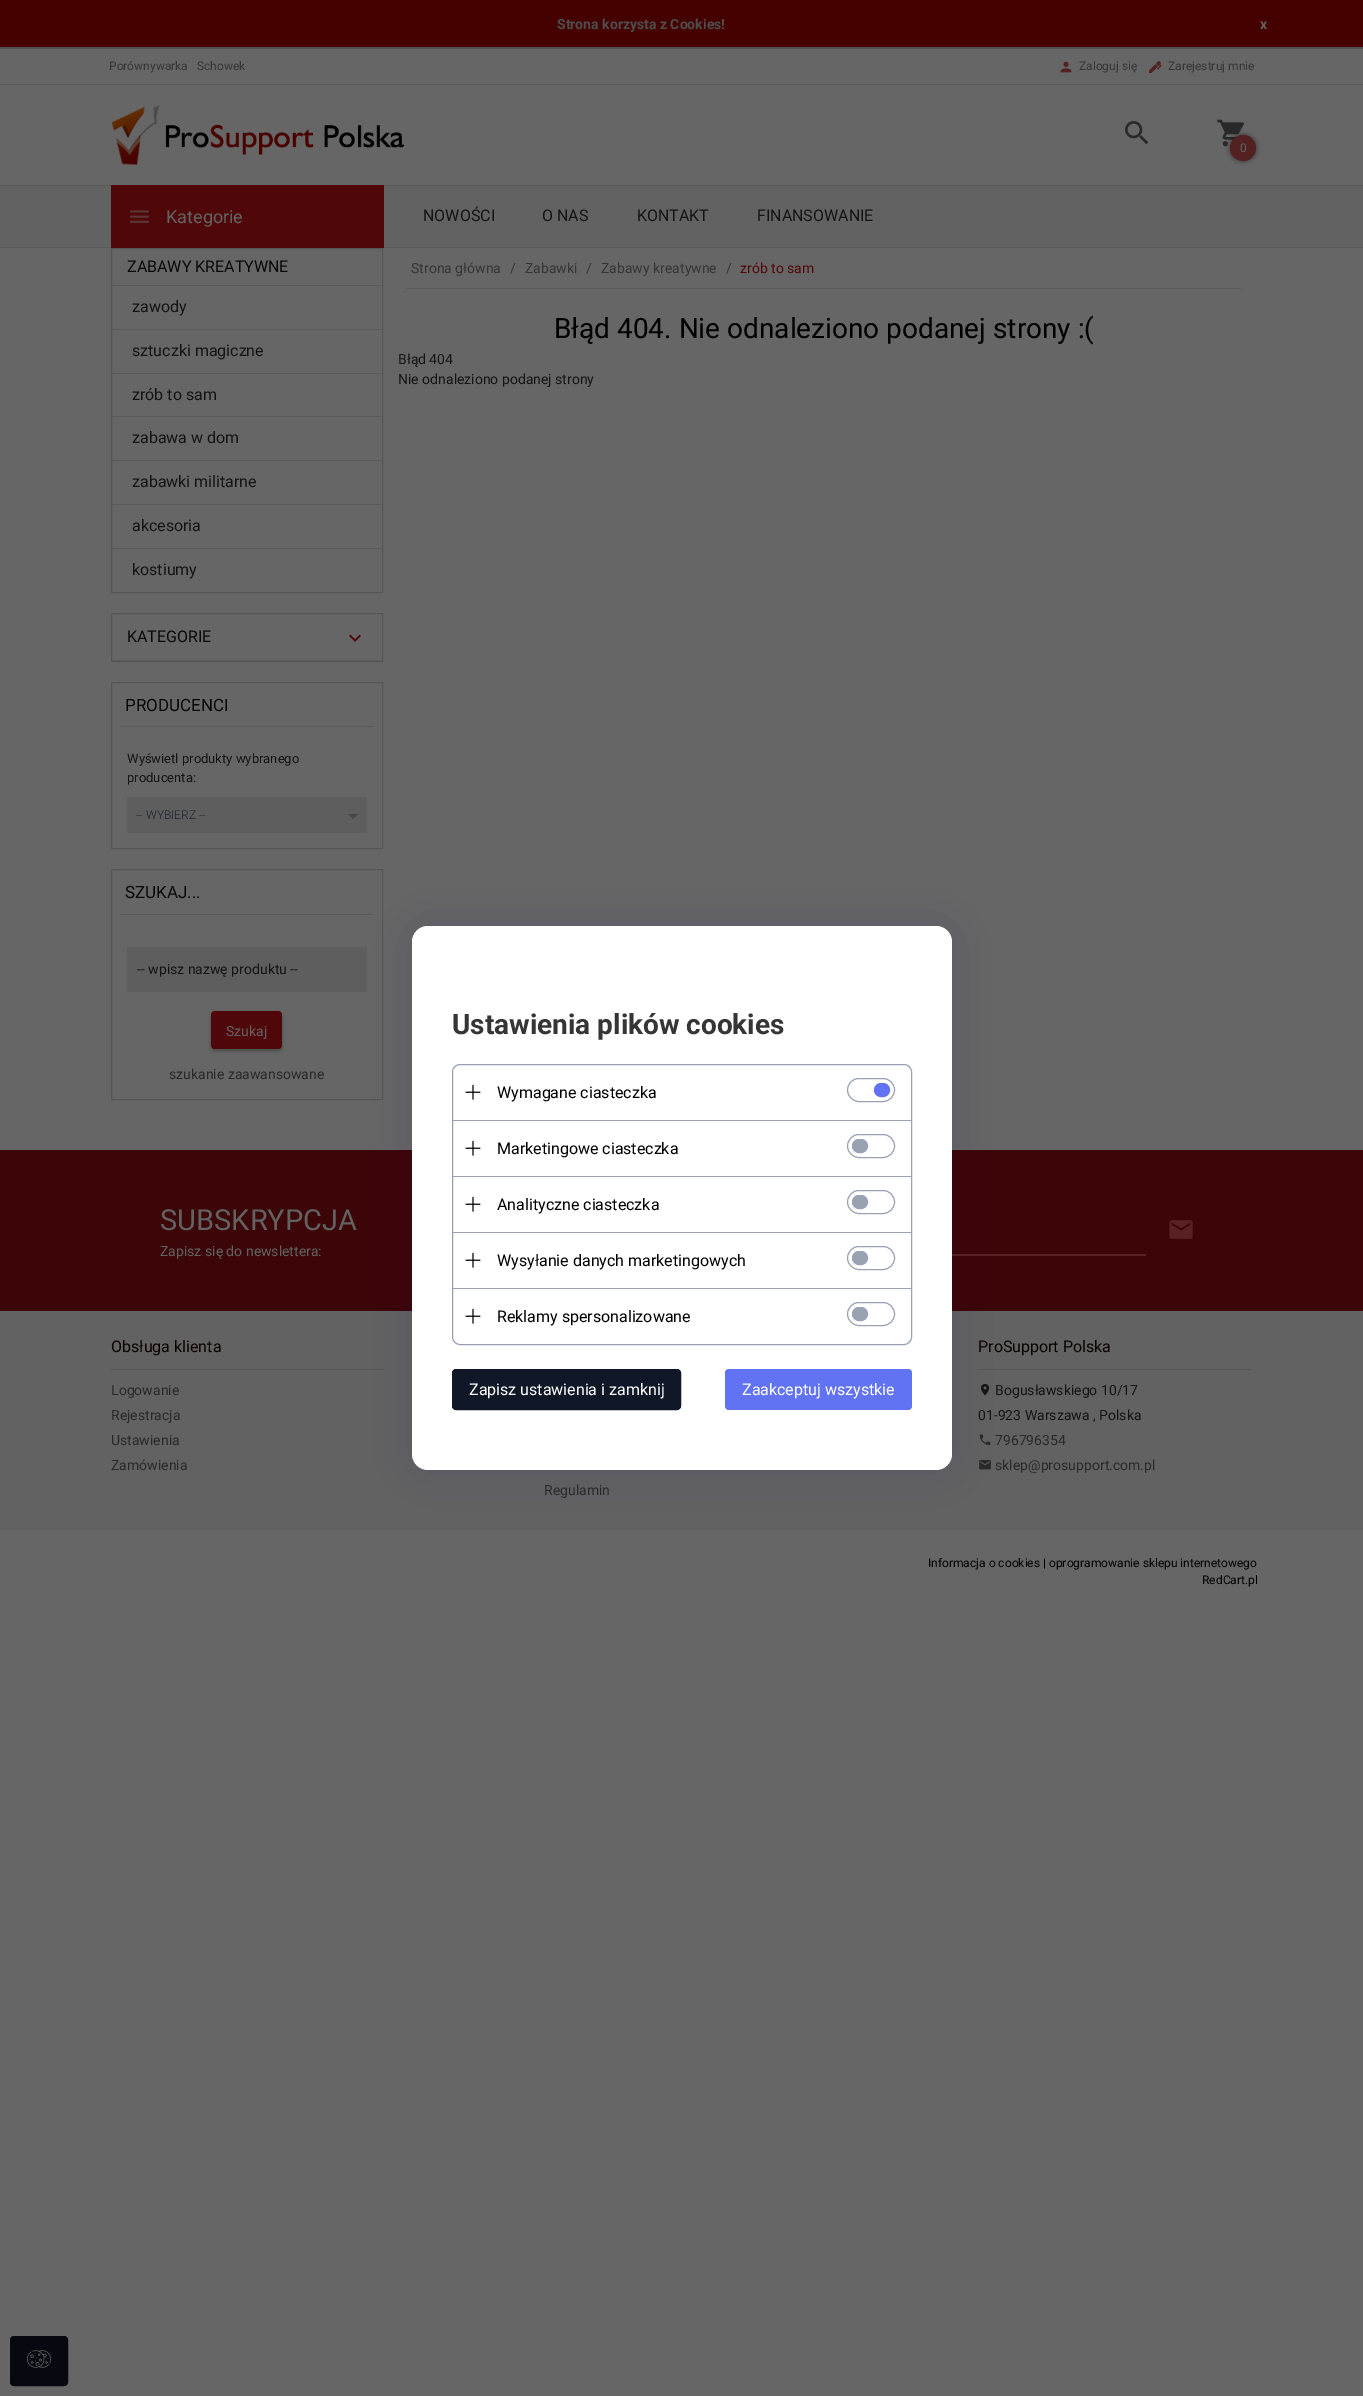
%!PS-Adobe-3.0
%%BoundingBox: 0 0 1363 2396
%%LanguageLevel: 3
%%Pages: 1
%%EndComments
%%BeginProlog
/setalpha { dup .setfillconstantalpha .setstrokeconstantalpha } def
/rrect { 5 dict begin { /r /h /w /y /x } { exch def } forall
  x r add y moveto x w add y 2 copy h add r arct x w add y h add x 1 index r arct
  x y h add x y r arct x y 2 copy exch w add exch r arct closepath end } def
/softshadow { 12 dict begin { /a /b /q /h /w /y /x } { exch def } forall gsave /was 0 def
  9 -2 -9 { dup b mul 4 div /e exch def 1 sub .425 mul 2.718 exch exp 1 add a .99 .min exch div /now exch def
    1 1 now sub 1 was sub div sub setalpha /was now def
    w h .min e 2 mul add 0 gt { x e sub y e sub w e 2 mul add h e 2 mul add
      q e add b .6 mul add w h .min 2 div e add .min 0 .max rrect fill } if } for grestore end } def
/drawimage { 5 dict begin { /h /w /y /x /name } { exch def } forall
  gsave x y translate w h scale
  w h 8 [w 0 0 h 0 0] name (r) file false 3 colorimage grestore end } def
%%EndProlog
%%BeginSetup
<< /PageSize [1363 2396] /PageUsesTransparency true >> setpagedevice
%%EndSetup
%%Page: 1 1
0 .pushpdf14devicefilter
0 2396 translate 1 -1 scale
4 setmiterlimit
0.4 setgray
0 0 1363 2396 rectfill
0.271 0 0 setrgbcolor
0 0 1363 47 rectfill
0.322 setgray
0 47 1363 2 rectfill
0.353 setgray
0 84 1363 1 rectfill
(images/1.raw) 1060 61 12 12 drawimage
(images/2.raw) 1149 61 13 12 drawimage
(images/3.raw) 112 105 293 60 drawimage
(images/4.raw) 1125 121 24 24 drawimage
(images/5.raw) 1217 119 27 28 drawimage
0 setgray
1229 134 28 28 14 2 0.36 softshadow
0.329 0.129 0.137 setrgbcolor
newpath 1243 148 13 0 360 arc closepath fill
0.384 setgray
0 186 1363 61 rectfill
0.353 setgray
0 185 1363 1 rectfill
0 247 1363 1 rectfill
0.314 0.027 0.039 setrgbcolor
111 185 273 63 rectfill
(images/6.raw) 130 210 19 13 drawimage
0.337 setgray
111.5 248.5 271 344 rectstroke
0.353 setgray
112 285 270 1 rectfill
112 329 270 1 rectfill
112 373 270 1 rectfill
112 416 270 1 rectfill
112 460 270 1 rectfill
112 504 270 1 rectfill
112 548 270 1 rectfill
0.337 setgray
111.5 613.5 271 48 rectstroke
0.353 setgray
112 660 270 1 rectfill
(images/7.raw) 349 634 12 8 drawimage
0.337 setgray
111.5 682.5 271 166 rectstroke
0.353 setgray
120 726 254 1 rectfill
0.369 setgray
127 797 240 36 rectfill
0.275 setgray
newpath 348 814 moveto 358 814 lineto 353 819 lineto closepath fill
0.337 setgray
111.5 869.5 271 230 rectstroke
0.353 setgray
120 914 254 1 rectfill
0.369 setgray
127 947 240 45 rectfill
0 setgray
211 1013 71 38 4 2 0.3 softshadow
0.314 0.027 0.039 setrgbcolor
211 1011 71 38 4 rrect fill
0.353 setgray
406 288 835 1 rectfill
0.235 0.02 0.027 setrgbcolor
0 1150 1363 161 rectfill
(images/8.raw) 1169 1220 24 19 drawimage
0.345 0.133 0.141 setrgbcolor
952 1254 194 2 rectfill
0.384 setgray
0 1311 1363 219 rectfill
0.337 setgray
111 1369 273 1 rectfill
978 1369 273 1 rectfill
(images/9.raw) 980 1383 10 13 drawimage
(images/10.raw) 979 1434 12 11 drawimage
(images/11.raw) 979 1460 12 10 drawimage
0.129 0.102 0.412 setrgbcolor
412 926 540 544 16 24 0.15 softshadow
1 setgray
412 926 540 544 16 rrect fill
0.596 0.635 0.702 setrgbcolor
452.5 1064.5 459 280 7.5 rrect stroke
(images/12.raw) 465 1084 16 16 drawimage
847.5 1078.5 47 23 11.5 rrect stroke
0.38 0.447 0.953 setrgbcolor
874.5 1083.5 15 13 6.5 rrect gsave fill grestore
stroke
0.596 0.635 0.702 setrgbcolor
453 1120 458 1 rectfill
(images/12.raw) 465 1140 16 16 drawimage
847.5 1134.5 47 23 11.5 rrect stroke
852.5 1139.5 15 13 6.5 rrect gsave fill grestore
stroke
453 1176 458 1 rectfill
(images/12.raw) 465 1196 16 16 drawimage
847.5 1190.5 47 23 11.5 rrect stroke
852.5 1195.5 15 13 6.5 rrect gsave fill grestore
stroke
453 1232 458 1 rectfill
(images/12.raw) 465 1252 16 16 drawimage
847.5 1246.5 47 23 11.5 rrect stroke
852.5 1251.5 15 13 6.5 rrect gsave fill grestore
stroke
453 1288 458 1 rectfill
(images/12.raw) 465 1308 16 16 drawimage
847.5 1302.5 47 23 11.5 rrect stroke
852.5 1307.5 15 13 6.5 rrect gsave fill grestore
stroke
0.063 0.094 0.157 setrgbcolor
452.5 1369.5 228 40 3.5 rrect gsave fill grestore
stroke
0.38 0.447 0.953 setrgbcolor
725 1369 187 41 4 rrect fill
0.024 0.039 0.063 setrgbcolor
10.5 2336.5 57 49 3.5 rrect gsave fill grestore
stroke
(images/13.raw) 27 2350 24 18 drawimage
/Roboto-Bold [14 0 0 -14 0 0] selectfont
0.302 setgray
557 29 moveto (Strona korzysta z Cookies!) show
0.384 setgray
1260 29 moveto (x) show
/Roboto-Regular [12 0 0 -12 0 0] selectfont
0.208 setgray
109 70 moveto (Porównywarka) show
197 70 moveto (Schowek) show
1079 70 moveto (Zaloguj się) show
1168 70 moveto (Zarejestruj mnie) show
0.384 setgray
1240 152 moveto (0) show
/Roboto-Regular [18 0 0 -18 0 0] selectfont
166 223 moveto (Kategorie) show
/Roboto-Regular [16 0 0 -16 0 0] selectfont
0.078 setgray
423 221 moveto (NOWOŚCI) show
542 221 moveto (O NAS) show
637 221 moveto (KONTAKT) show
757 221 moveto (FINANSOWANIE) show
0.031 setgray
127 272 moveto (ZABAWY KREATYWNE) show
0.078 setgray
132 312 moveto (zawody) show
132 356 moveto (sztuczki magiczne) show
132 400 moveto (zrób to sam) show
132 443 moveto (zabawa w dom) show
132 487 moveto (zabawki militarne) show
132 531 moveto (akcesoria) show
132 575 moveto (kostiumy) show
0.031 setgray
127 642 moveto (KATEGORIE) show
/Roboto-Regular [17 0 0 -17 0 0] selectfont
125 711 moveto (PRODUCENCI) show
/Roboto-Regular [13 0 0 -13 0 0] selectfont
0.078 setgray
127 763 moveto (Wyświetl produkty wybranego) show
127 782 moveto (producenta:) show
/Roboto-Light [12 0 0 -12 0 0] selectfont
0.118 0.133 0.165 setrgbcolor
136 819 moveto (-- WYBIERZ --) show
/Roboto-Regular [17 0 0 -17 0 0] selectfont
0.031 setgray
125 898 moveto (SZUKAJ...) show
/Roboto-Regular [14 0 0 -14 0 0] selectfont
0.078 setgray
137 974 moveto (-- wpisz nazwę produktu --) show
0.384 setgray
226 1036 moveto (Szukaj) show
0.161 setgray
169 1079 moveto (szukanie zaawansowane) show
0.208 setgray
411 273 moveto (Strona główna) show
510 273 moveto (/) show
525 273 moveto (Zabawki) show
586 273 moveto (/) show
601 273 moveto (Zabawy kreatywne) show
726 273 moveto (/) show
0.314 0.027 0.039 setrgbcolor
740 273 moveto (zrób to sam) show
/Roboto-Regular [28 0 0 -28 0 0] selectfont
0 setgray
554 338 moveto (Błąd 404. Nie odnaleziono podanej strony :\() show
/Roboto-Regular [14 0 0 -14 0 0] selectfont
0.078 setgray
398 364 moveto (Błąd 404) show
398 384 moveto (Nie odnaleziono podanej strony) show
/Roboto-Regular [29 0 0 -29 0 0] selectfont
0.384 setgray
160 1230 moveto (SUBSKRYPCJA) show
/Roboto-Regular [14 0 0 -14 0 0] selectfont
160 1256 moveto (Zapisz się do newslettera:) show
/Roboto-Regular [16 0 0 -16 0 0] selectfont
0.039 0 0 setrgbcolor
111 1352 moveto (Obsługa klienta) show
/Roboto-Regular [14 0 0 -14 0 0] selectfont
0.161 setgray
111 1395 moveto (Logowanie) show
111 1420 moveto (Rejestracja) show
111 1445 moveto (Ustawienia) show
111 1470 moveto (Zamówienia) show
/Roboto-Regular [16 0 0 -16 0 0] selectfont
0.039 0 0 setrgbcolor
978 1352 moveto (ProSupport Polska) show
/Roboto-Regular [14 0 0 -14 0 0] selectfont
0.078 setgray
995 1395 moveto (Bogusławskiego 10/17) show
978 1420 moveto (01-923 Warszawa , Polska) show
0.161 setgray
995 1445 moveto (796796354) show
995 1470 moveto (sklep@prosupport.com.pl) show
544 1495 moveto (Regulamin) show
/Roboto-Regular [12 0 0 -12 0 0] selectfont
0 setgray
928 1567 moveto (Informacja o cookies | oprogramowanie sklepu internetowego) show
1202 1584 moveto (RedCart.pl) show
/Roboto-Bold [28 0 0 -28 0 0] selectfont
0.208 setgray
452 1034 moveto (Ustawienia plików cookies) show
/Roboto-Regular [16 0 0 -16 0 0] selectfont
0 setgray
497 1098 moveto (Wymagane ciasteczka) show
497 1154 moveto (Marketingowe ciasteczka) show
497 1210 moveto (Analityczne ciasteczka) show
497 1266 moveto (Wysyłanie danych marketingowych) show
497 1322 moveto (Reklamy spersonalizowane) show
1 setgray
469 1395 moveto (Zapisz ustawienia i zamknij) show
742 1395 moveto (Zaakceptuj wszystkie) show
.poppdf14devicefilter showpage
%%EOF
